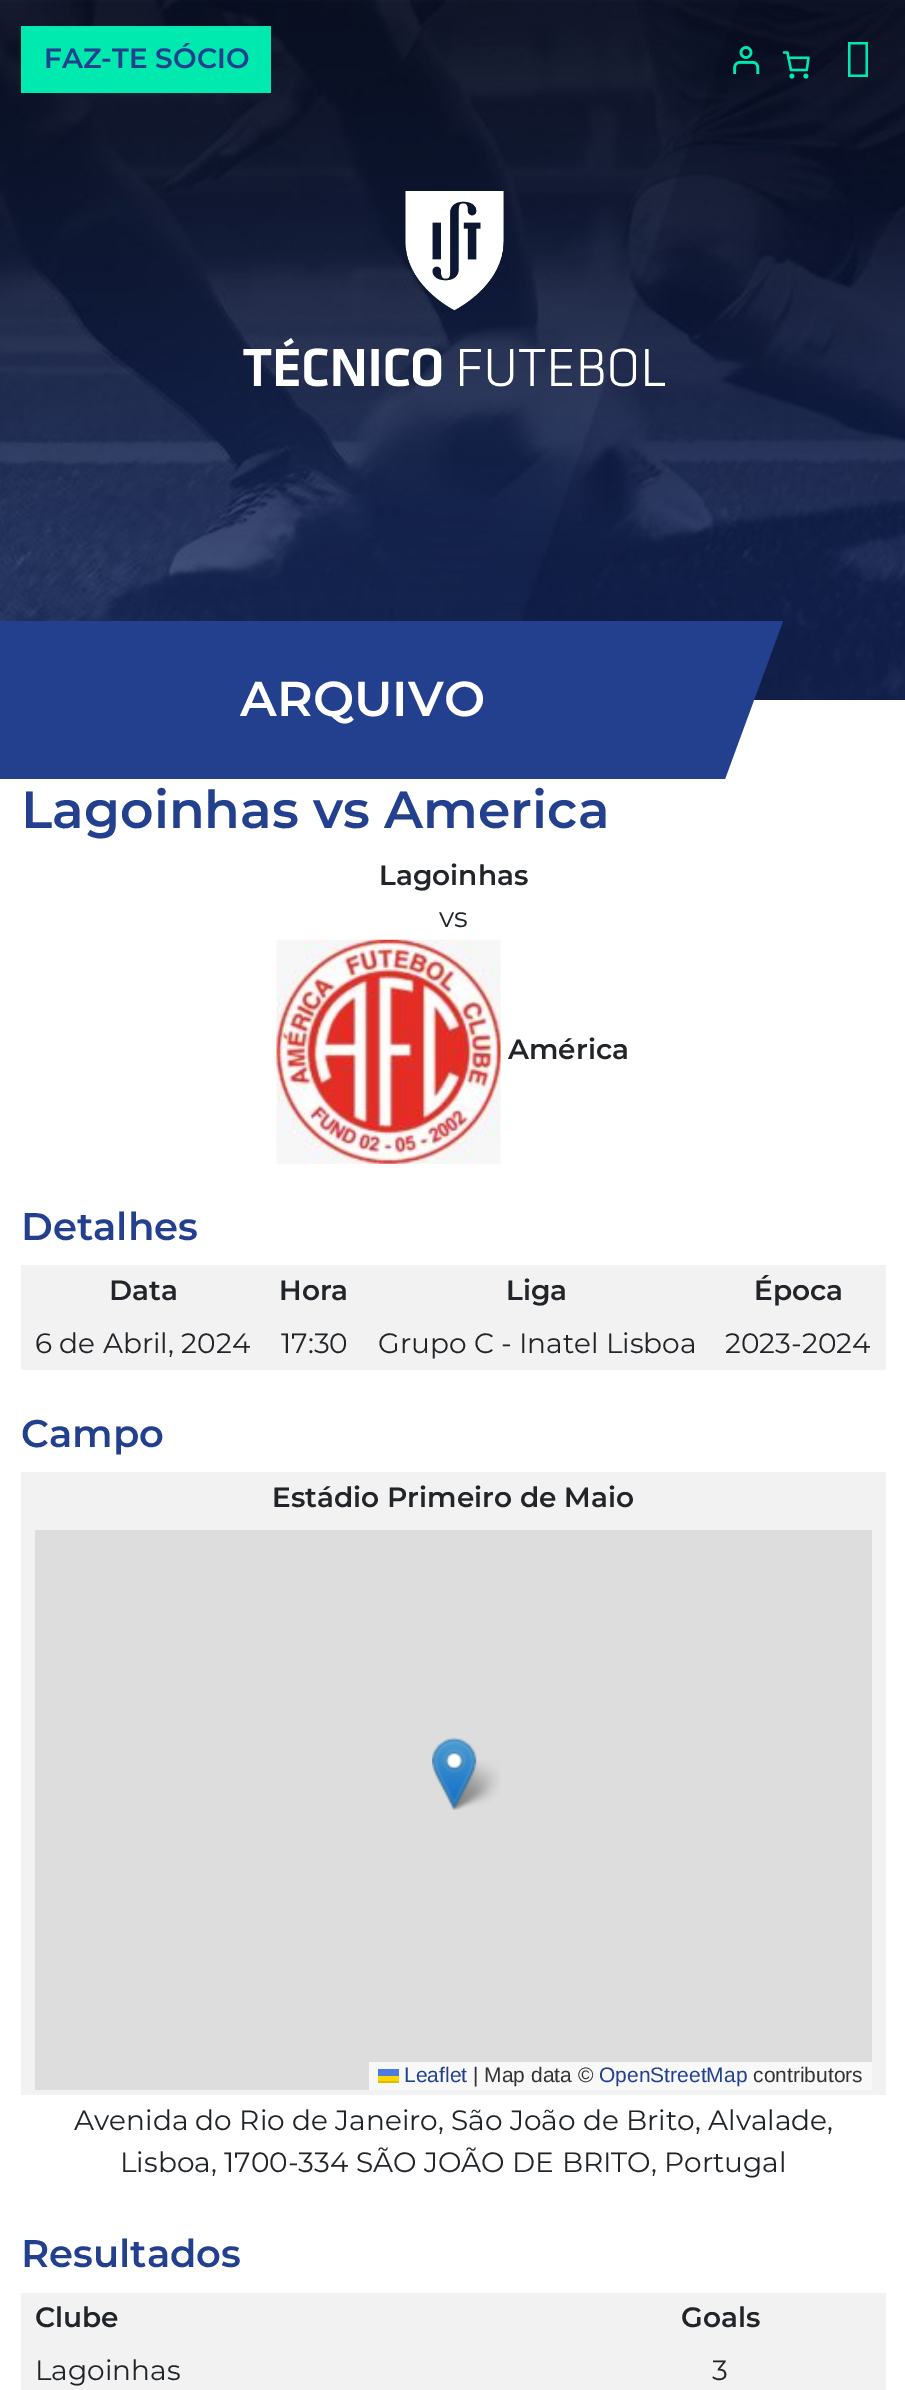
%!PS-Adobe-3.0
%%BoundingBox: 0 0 905 2390
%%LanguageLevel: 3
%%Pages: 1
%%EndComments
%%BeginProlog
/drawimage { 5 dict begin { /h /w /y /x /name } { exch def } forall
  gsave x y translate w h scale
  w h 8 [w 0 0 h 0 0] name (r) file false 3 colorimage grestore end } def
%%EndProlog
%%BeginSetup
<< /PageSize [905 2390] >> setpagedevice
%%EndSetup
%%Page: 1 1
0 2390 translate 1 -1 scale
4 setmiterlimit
1 setgray
0 0 905 2390 rectfill
(images/1.raw) 0 0 905 700 drawimage
0 0.914 0.686 setrgbcolor
21 26 250 67 rectfill
(images/2.raw) 733 46 27 28 drawimage
(images/3.raw) 782 51 28 28 drawimage
newpath 848 77 moveto 848 42 lineto 868 42 lineto 868 77 lineto closepath 850.5 74.5 moveto 865.5 74.5 lineto 865.5 44.5 lineto 850.5 44.5 lineto closepath fill
(images/4.raw) 243 191 422 196 drawimage
0.137 0.251 0.557 setrgbcolor
0 621 57 158 rectfill
newpath 57 621 moveto 783 621 lineto 725 779 lineto 0 779 lineto closepath fill
(images/5.raw) 276 939 225 225 drawimage
0.949 setgray
21 1265 865 105 rectfill
21 1472 865 623 rectfill
0.867 setgray
35 1530 837 560 rectfill
(images/7.raw) 448 1760 52 50 drawimage
(images/6.raw) 432 1737 45 73 drawimage
0.973 setgray
369 2062 503 28 rectfill
0.298 0.482 0.882 setrgbcolor
378 2069 21 7 rectfill
1 0.835 0 setrgbcolor
378 2076 21 5 rectfill
0.878 0.737 0 setrgbcolor
378 2081 21 2 rectfill
0.949 setgray
21 2293 865 97 rectfill
/Montserrat-SemiBold [28 0 0 -28 0 0] selectfont
0.137 0.251 0.557 setrgbcolor
44 68 moveto (FAZ-TE SÓCIO) show
/Montserrat-SemiBold [49 0 0 -49 0 0] selectfont
1 setgray
240 716 moveto (ARQUIVO) show
/Montserrat-SemiBold [52.1 0 0 -52.1 0 0] selectfont
0.137 0.251 0.557 setrgbcolor
21 828 moveto (Lagoinhas vs America) show
/Montserrat-SemiBold [28 0 0 -28 0 0] selectfont
0.129 0.145 0.161 setrgbcolor
379 885 moveto (Lagoinhas) show
/Montserrat-Regular [28 0 0 -28 0 0] selectfont
439 927 moveto (vs) show
/Montserrat-SemiBold [28 0 0 -28 0 0] selectfont
508 1059 moveto (América) show
/Montserrat-SemiBold [38.5 0 0 -38.5 0 0] selectfont
0.137 0.251 0.557 setrgbcolor
21 1240 moveto (Detalhes) show
/Montserrat-SemiBold [28 0 0 -28 0 0] selectfont
0.129 0.145 0.161 setrgbcolor
109 1300 moveto (Data) show
279 1300 moveto (Hora) show
506 1300 moveto (Liga) show
754 1300 moveto (Época) show
/Montserrat-Regular [28 0 0 -28 0 0] selectfont
35 1353 moveto (6 de Abril, 2024) show
281 1353 moveto (17:30) show
378 1353 moveto (Grupo C - Inatel Lisboa) show
725 1353 moveto (2023-2024) show
/Montserrat-SemiBold [38.5 0 0 -38.5 0 0] selectfont
0.137 0.251 0.557 setrgbcolor
21 1447 moveto (Campo) show
/Montserrat-SemiBold [28 0 0 -28 0 0] selectfont
0.129 0.145 0.161 setrgbcolor
272 1507 moveto (Estádio Primeiro de Maio) show
/LiberationSans-Regular [21 0 0 -21 0 0] selectfont
0.137 0.251 0.557 setrgbcolor
404 2082 moveto (Leaflet) show
0.2 setgray
473 2082 moveto (| Map data ©) show
0.137 0.251 0.557 setrgbcolor
599 2082 moveto (OpenStreetMap) show
0.2 setgray
753 2082 moveto (contributors) show
/Montserrat-Regular [28 0 0 -28 0 0] selectfont
0.129 0.145 0.161 setrgbcolor
74 2130 moveto (Avenida do Rio de Janeiro, São João de Brito, Alvalade,) show
120 2172 moveto (Lisboa, 1700-334 SÃO JOÃO DE BRITO, Portugal) show
/Montserrat-SemiBold [38.5 0 0 -38.5 0 0] selectfont
0.137 0.251 0.557 setrgbcolor
21 2267 moveto (Resultados) show
/Montserrat-SemiBold [28 0 0 -28 0 0] selectfont
0.129 0.145 0.161 setrgbcolor
35 2327 moveto (Clube) show
681 2327 moveto (Goals) show
/Montserrat-Regular [28 0 0 -28 0 0] selectfont
35 2380 moveto (Lagoinhas) show
712 2380 moveto (3) show
showpage
%%EOF
